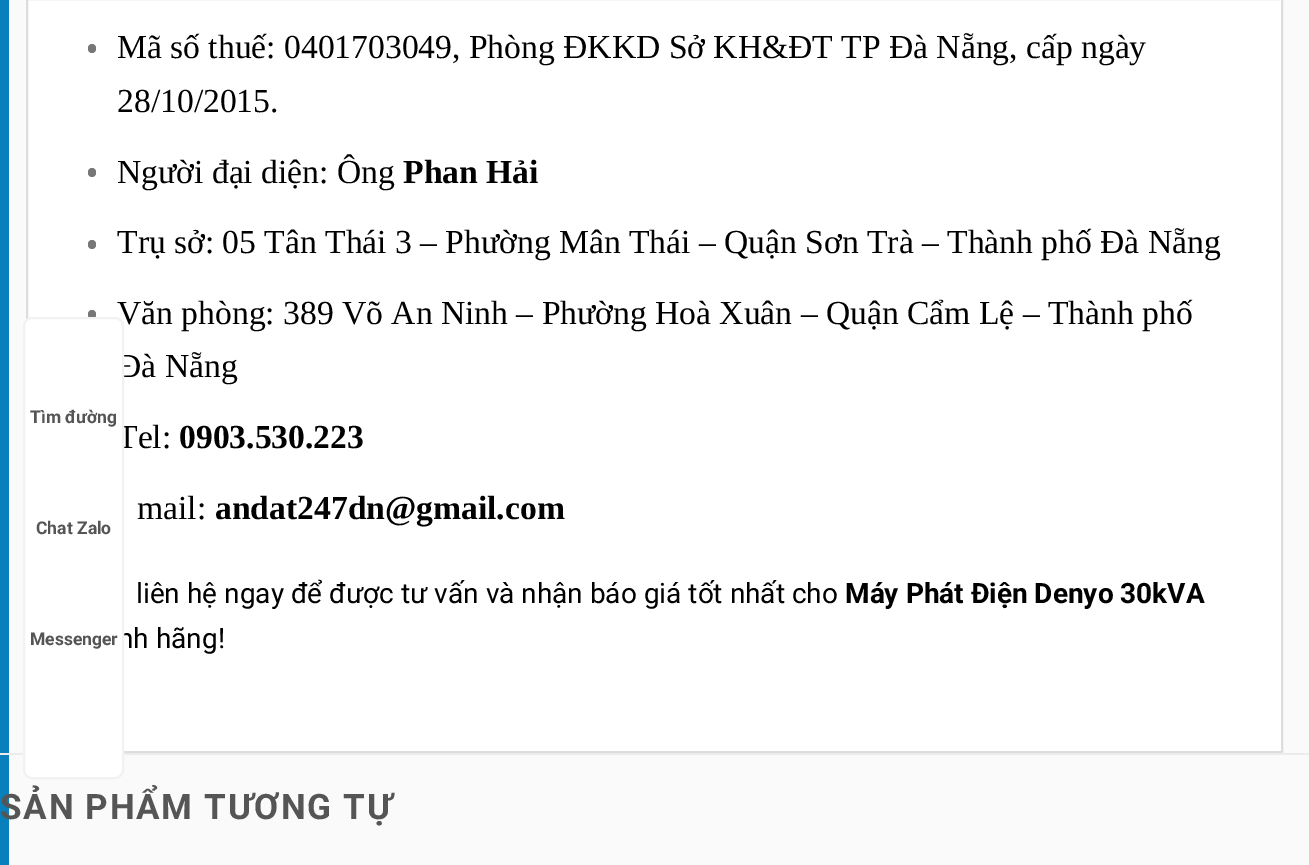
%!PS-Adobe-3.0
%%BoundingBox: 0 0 1309 865
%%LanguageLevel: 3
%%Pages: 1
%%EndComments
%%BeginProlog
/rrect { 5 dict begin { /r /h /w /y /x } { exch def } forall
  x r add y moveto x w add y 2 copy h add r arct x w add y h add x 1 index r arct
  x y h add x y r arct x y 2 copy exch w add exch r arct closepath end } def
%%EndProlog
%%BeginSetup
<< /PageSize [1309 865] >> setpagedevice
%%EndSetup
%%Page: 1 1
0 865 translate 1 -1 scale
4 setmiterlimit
0.98 setgray
0 0 1309 865 rectfill
0.035 0.498 0.737 setrgbcolor
0 0 9 865 rectfill
1 setgray
newpath 27 -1 moveto 1282 -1 lineto 1282 752 lineto 27 752 lineto closepath gsave fill grestore
0.867 setgray
2 setlinewidth
stroke
0.467 setgray
88 44 8 9 4 rrect fill
88 168 8 9 4 rrect fill
88 240 8 9 4 rrect fill
88 310 8 9 4 rrect fill
0.925 setgray
0 753 1309 2 rectfill
/LiberationSerif-Regular [33.6 0 0 -33.6 0 0] selectfont
0 setgray
117 58 moveto (Mã số thuế: 0401703049, Phòng ĐKKD Sở KH&ĐT TP Đà Nẵng, cấp ngày) show
117 112 moveto (28/10/2015.) show
117 183 moveto (Người đại diện: Ông) show
/LiberationSerif-Bold [33.6 0 0 -33.6 0 0] selectfont
403 183 moveto (Phan Hải) show
/LiberationSerif-Regular [33.6 0 0 -33.6 0 0] selectfont
117 253 moveto (Trụ sở: 05 Tân Thái 3 – Phường Mân Thái – Quận Sơn Trà – Thành phố Đà Nẵng) show
117 324 moveto (Văn phòng: 389 Võ An Ninh – Phường Hoà Xuân – Quận Cẩm Lệ – Thành phố) show
117 377 moveto (Đà Nẵng) show
117 448 moveto (Tel:) show
/LiberationSerif-Bold [33.6 0 0 -33.6 0 0] selectfont
179 448 moveto (0903.530.223) show
/LiberationSerif-Regular [33.6 0 0 -33.6 0 0] selectfont
137 519 moveto (mail:) show
/LiberationSerif-Bold [33.6 0 0 -33.6 0 0] selectfont
215 519 moveto (andat247dn@gmail.com) show
/Roboto-Regular [28 0 0 -28 0 0] selectfont
136 603 moveto (liên hệ ngay để được tư vấn và nhận báo giá tốt nhất cho) show
/Roboto-Bold [28 0 0 -28 0 0] selectfont
845 603 moveto (Máy Phát Điện Denyo 30kVA) show
/Roboto-Regular [28 0 0 -28 0 0] selectfont
118 648 moveto (nh hãng!) show
/Roboto-Bold [35 0 0 -35 0 0] selectfont
0.333 setgray
0 819 moveto 1.75 0 (SẢN PHẨM TƯƠNG TỰ) ashow
1 setgray
24 318 99 460 8 rrect gsave fill grestore
0.949 setgray
stroke
/Roboto-Bold [17.5 0 0 -17.5 0 0] selectfont
0.333 setgray
30 423 moveto (Tìm đường) show
36 534 moveto (Chat Zalo) show
30 645 moveto (Messenger) show
showpage
%%EOF
